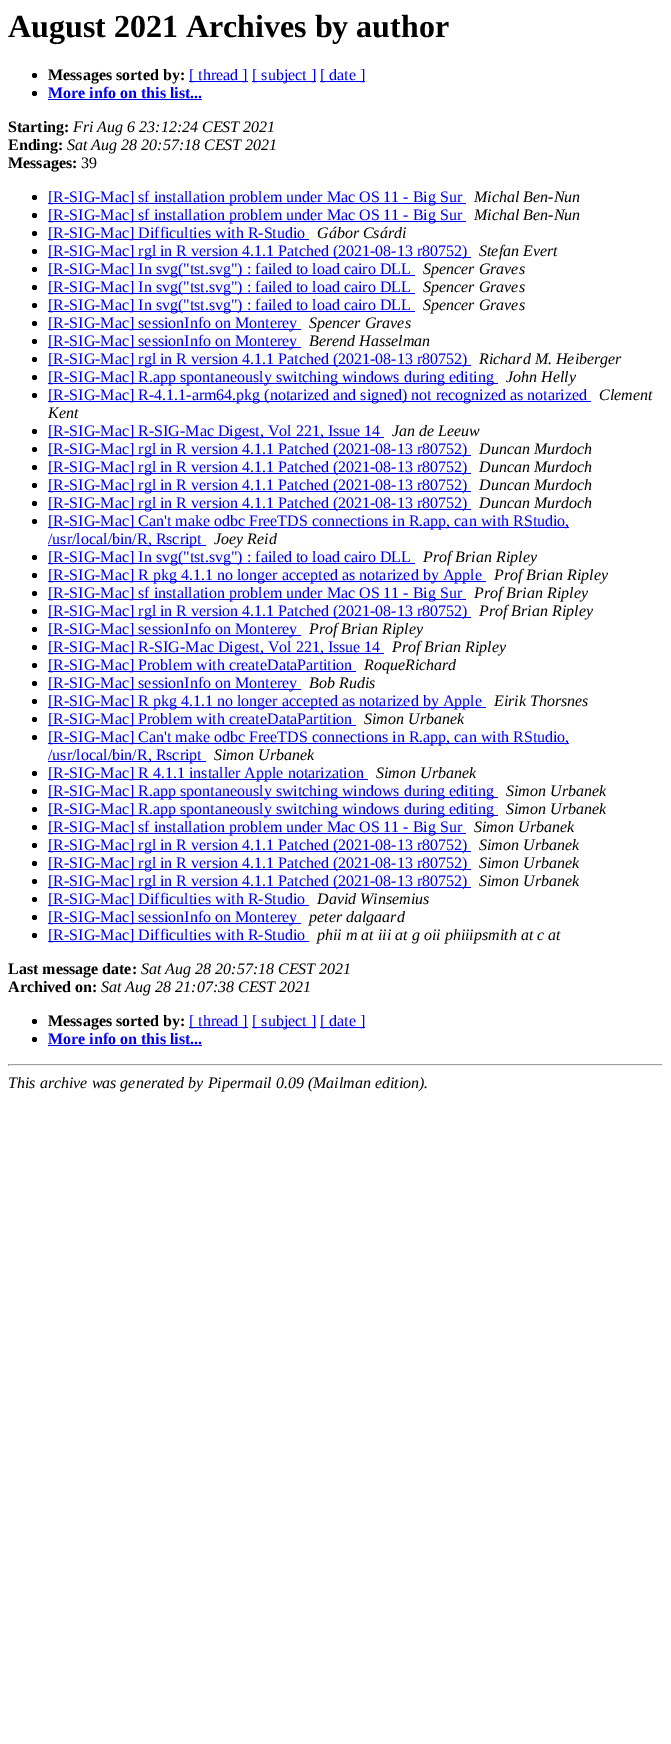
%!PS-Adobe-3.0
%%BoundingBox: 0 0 671 1744
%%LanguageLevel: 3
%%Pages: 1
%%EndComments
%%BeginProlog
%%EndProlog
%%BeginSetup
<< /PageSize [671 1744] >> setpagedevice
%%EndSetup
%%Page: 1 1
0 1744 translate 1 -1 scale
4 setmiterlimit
1 setgray
0 0 671 1744 rectfill
0 setgray
newpath 34.5 75.5 2.5 0 360 arc closepath fill
0 0 0.933 setrgbcolor
189 81 59 1 rectfill
252 81 64 1 rectfill
320 81 45 1 rectfill
0 setgray
newpath 34.5 93.5 2.5 0 360 arc closepath fill
0 0 0.933 setrgbcolor
48 99 154 1 rectfill
0 setgray
newpath 34.5 197.5 2.5 0 360 arc closepath fill
0 0 0.933 setrgbcolor
48 203 418 1 rectfill
0 setgray
newpath 34.5 215.5 2.5 0 360 arc closepath fill
0 0 0.933 setrgbcolor
48 221 418 1 rectfill
0 setgray
newpath 34.5 233.5 2.5 0 360 arc closepath fill
0 0 0.933 setrgbcolor
48 239 261 1 rectfill
0 setgray
newpath 34.5 251.5 2.5 0 360 arc closepath fill
0 0 0.933 setrgbcolor
48 257 423 1 rectfill
0 setgray
newpath 34.5 269.5 2.5 0 360 arc closepath fill
0 0 0.933 setrgbcolor
48 275 367 1 rectfill
0 setgray
newpath 34.5 287.5 2.5 0 360 arc closepath fill
0 0 0.933 setrgbcolor
48 293 367 1 rectfill
0 setgray
newpath 34.5 305.5 2.5 0 360 arc closepath fill
0 0 0.933 setrgbcolor
48 311 367 1 rectfill
0 setgray
newpath 34.5 323.5 2.5 0 360 arc closepath fill
0 0 0.933 setrgbcolor
48 329 253 1 rectfill
0 setgray
newpath 34.5 341.5 2.5 0 360 arc closepath fill
0 0 0.933 setrgbcolor
48 347 253 1 rectfill
0 setgray
newpath 34.5 359.5 2.5 0 360 arc closepath fill
0 0 0.933 setrgbcolor
48 365 423 1 rectfill
0 setgray
newpath 34.5 377.5 2.5 0 360 arc closepath fill
0 0 0.933 setrgbcolor
48 383 450 1 rectfill
0 setgray
newpath 34.5 395.5 2.5 0 360 arc closepath fill
0 0 0.933 setrgbcolor
48 401 543 1 rectfill
0 setgray
newpath 34.5 431.5 2.5 0 360 arc closepath fill
0 0 0.933 setrgbcolor
48 437 336 1 rectfill
0 setgray
newpath 34.5 449.5 2.5 0 360 arc closepath fill
0 0 0.933 setrgbcolor
48 455 423 1 rectfill
0 setgray
newpath 34.5 467.5 2.5 0 360 arc closepath fill
0 0 0.933 setrgbcolor
48 473 423 1 rectfill
0 setgray
newpath 34.5 485.5 2.5 0 360 arc closepath fill
0 0 0.933 setrgbcolor
48 491 423 1 rectfill
0 setgray
newpath 34.5 503.5 2.5 0 360 arc closepath fill
0 0 0.933 setrgbcolor
48 509 423 1 rectfill
0 setgray
newpath 34.5 521.5 2.5 0 360 arc closepath fill
0 0 0.933 setrgbcolor
48 527 521 1 rectfill
48 545 158 1 rectfill
0 setgray
newpath 34.5 557.5 2.5 0 360 arc closepath fill
0 0 0.933 setrgbcolor
48 563 367 1 rectfill
0 setgray
newpath 34.5 575.5 2.5 0 360 arc closepath fill
0 0 0.933 setrgbcolor
48 581 438 1 rectfill
0 setgray
newpath 34.5 593.5 2.5 0 360 arc closepath fill
0 0 0.933 setrgbcolor
48 599 418 1 rectfill
0 setgray
newpath 34.5 611.5 2.5 0 360 arc closepath fill
0 0 0.933 setrgbcolor
48 617 423 1 rectfill
0 setgray
newpath 34.5 629.5 2.5 0 360 arc closepath fill
0 0 0.933 setrgbcolor
48 635 253 1 rectfill
0 setgray
newpath 34.5 647.5 2.5 0 360 arc closepath fill
0 0 0.933 setrgbcolor
48 653 336 1 rectfill
0 setgray
newpath 34.5 665.5 2.5 0 360 arc closepath fill
0 0 0.933 setrgbcolor
48 671 308 1 rectfill
0 setgray
newpath 34.5 683.5 2.5 0 360 arc closepath fill
0 0 0.933 setrgbcolor
48 689 253 1 rectfill
0 setgray
newpath 34.5 701.5 2.5 0 360 arc closepath fill
0 0 0.933 setrgbcolor
48 707 438 1 rectfill
0 setgray
newpath 34.5 719.5 2.5 0 360 arc closepath fill
0 0 0.933 setrgbcolor
48 725 308 1 rectfill
0 setgray
newpath 34.5 737.5 2.5 0 360 arc closepath fill
0 0 0.933 setrgbcolor
48 743 521 1 rectfill
48 761 158 1 rectfill
0 setgray
newpath 34.5 773.5 2.5 0 360 arc closepath fill
0 0 0.933 setrgbcolor
48 779 320 1 rectfill
0 setgray
newpath 34.5 791.5 2.5 0 360 arc closepath fill
0 0 0.933 setrgbcolor
48 797 450 1 rectfill
0 setgray
newpath 34.5 809.5 2.5 0 360 arc closepath fill
0 0 0.933 setrgbcolor
48 815 450 1 rectfill
0 setgray
newpath 34.5 827.5 2.5 0 360 arc closepath fill
0 0 0.933 setrgbcolor
48 833 418 1 rectfill
0 setgray
newpath 34.5 845.5 2.5 0 360 arc closepath fill
0 0 0.933 setrgbcolor
48 851 423 1 rectfill
0 setgray
newpath 34.5 863.5 2.5 0 360 arc closepath fill
0 0 0.933 setrgbcolor
48 869 423 1 rectfill
0 setgray
newpath 34.5 881.5 2.5 0 360 arc closepath fill
0 0 0.933 setrgbcolor
48 887 423 1 rectfill
0 setgray
newpath 34.5 899.5 2.5 0 360 arc closepath fill
0 0 0.933 setrgbcolor
48 905 261 1 rectfill
0 setgray
newpath 34.5 917.5 2.5 0 360 arc closepath fill
0 0 0.933 setrgbcolor
48 923 253 1 rectfill
0 setgray
newpath 34.5 935.5 2.5 0 360 arc closepath fill
0 0 0.933 setrgbcolor
48 941 261 1 rectfill
0 setgray
newpath 34.5 1021.5 2.5 0 360 arc closepath fill
0 0 0.933 setrgbcolor
189 1027 59 1 rectfill
252 1027 64 1 rectfill
320 1027 45 1 rectfill
0 setgray
newpath 34.5 1039.5 2.5 0 360 arc closepath fill
0 0 0.933 setrgbcolor
48 1045 154 1 rectfill
0.624 setgray
8 1064 655 1 rectfill
0.933 setgray
662 1064 1 2 rectfill
8 1065 655 1 rectfill
0.624 setgray
8 1064 1 2 rectfill
/LiberationSerif-Bold [32 0 0 -32 0 0] selectfont
0 setgray
8 37 moveto (August 2021 Archives by author) show
/LiberationSerif-Bold [16 0 0 -16 0 0] selectfont
48 80 moveto (Messages sorted by:) show
/LiberationSerif-Regular [16 0 0 -16 0 0] selectfont
0 0 0.933 setrgbcolor
189 80 moveto ([ thread ]) show
252 80 moveto ([ subject ]) show
320 80 moveto ([ date ]) show
/LiberationSerif-Bold [16 0 0 -16 0 0] selectfont
48 98 moveto (More info on this list...) show
0 setgray
8 132 moveto (Starting:) show
/LiberationSerif-Italic [16 0 0 -16 0 0] selectfont
73 132 moveto (Fri Aug 6 23:12:24 CEST 2021) show
/LiberationSerif-Bold [16 0 0 -16 0 0] selectfont
8 150 moveto (Ending:) show
/LiberationSerif-Italic [16 0 0 -16 0 0] selectfont
67 150 moveto (Sat Aug 28 20:57:18 CEST 2021) show
/LiberationSerif-Bold [16 0 0 -16 0 0] selectfont
8 168 moveto (Messages:) show
/LiberationSerif-Regular [16 0 0 -16 0 0] selectfont
81 168 moveto (39) show
0 0 0.933 setrgbcolor
48 202 moveto ([R-SIG-Mac] sf installation problem under Mac OS 11 - Big Sur) show
/LiberationSerif-Italic [16 0 0 -16 0 0] selectfont
0 setgray
474 202 moveto (Michal Ben-Nun) show
/LiberationSerif-Regular [16 0 0 -16 0 0] selectfont
0 0 0.933 setrgbcolor
48 220 moveto ([R-SIG-Mac] sf installation problem under Mac OS 11 - Big Sur) show
/LiberationSerif-Italic [16 0 0 -16 0 0] selectfont
0 setgray
474 220 moveto (Michal Ben-Nun) show
/LiberationSerif-Regular [16 0 0 -16 0 0] selectfont
0 0 0.933 setrgbcolor
48 238 moveto ([R-SIG-Mac] Difficulties with R-Studio) show
/LiberationSerif-Italic [16 0 0 -16 0 0] selectfont
0 setgray
317 238 moveto (Gábor Csárdi) show
/LiberationSerif-Regular [16 0 0 -16 0 0] selectfont
0 0 0.933 setrgbcolor
48 256 moveto ([R-SIG-Mac] rgl in R version 4.1.1 Patched \(2021-08-13 r80752\)) show
/LiberationSerif-Italic [16 0 0 -16 0 0] selectfont
0 setgray
479 256 moveto (Stefan Evert) show
/LiberationSerif-Regular [16 0 0 -16 0 0] selectfont
0 0 0.933 setrgbcolor
48 274 moveto ([R-SIG-Mac] In svg\("tst.svg"\) : failed to load cairo DLL) show
/LiberationSerif-Italic [16 0 0 -16 0 0] selectfont
0 setgray
423 274 moveto (Spencer Graves) show
/LiberationSerif-Regular [16 0 0 -16 0 0] selectfont
0 0 0.933 setrgbcolor
48 292 moveto ([R-SIG-Mac] In svg\("tst.svg"\) : failed to load cairo DLL) show
/LiberationSerif-Italic [16 0 0 -16 0 0] selectfont
0 setgray
423 292 moveto (Spencer Graves) show
/LiberationSerif-Regular [16 0 0 -16 0 0] selectfont
0 0 0.933 setrgbcolor
48 310 moveto ([R-SIG-Mac] In svg\("tst.svg"\) : failed to load cairo DLL) show
/LiberationSerif-Italic [16 0 0 -16 0 0] selectfont
0 setgray
423 310 moveto (Spencer Graves) show
/LiberationSerif-Regular [16 0 0 -16 0 0] selectfont
0 0 0.933 setrgbcolor
48 328 moveto ([R-SIG-Mac] sessionInfo on Monterey) show
/LiberationSerif-Italic [16 0 0 -16 0 0] selectfont
0 setgray
309 328 moveto (Spencer Graves) show
/LiberationSerif-Regular [16 0 0 -16 0 0] selectfont
0 0 0.933 setrgbcolor
48 346 moveto ([R-SIG-Mac] sessionInfo on Monterey) show
/LiberationSerif-Italic [16 0 0 -16 0 0] selectfont
0 setgray
309 346 moveto (Berend Hasselman) show
/LiberationSerif-Regular [16 0 0 -16 0 0] selectfont
0 0 0.933 setrgbcolor
48 364 moveto ([R-SIG-Mac] rgl in R version 4.1.1 Patched \(2021-08-13 r80752\)) show
/LiberationSerif-Italic [16 0 0 -16 0 0] selectfont
0 setgray
479 364 moveto (Richard M. Heiberger) show
/LiberationSerif-Regular [16 0 0 -16 0 0] selectfont
0 0 0.933 setrgbcolor
48 382 moveto ([R-SIG-Mac] R.app spontaneously switching windows during editing) show
/LiberationSerif-Italic [16 0 0 -16 0 0] selectfont
0 setgray
506 382 moveto (John Helly) show
/LiberationSerif-Regular [16 0 0 -16 0 0] selectfont
0 0 0.933 setrgbcolor
48 400 moveto ([R-SIG-Mac] R-4.1.1-arm64.pkg \(notarized and signed\) not recognized as notarized) show
/LiberationSerif-Italic [16 0 0 -16 0 0] selectfont
0 setgray
599 400 moveto (Clement) show
48 418 moveto (Kent) show
/LiberationSerif-Regular [16 0 0 -16 0 0] selectfont
0 0 0.933 setrgbcolor
48 436 moveto ([R-SIG-Mac] R-SIG-Mac Digest, Vol 221, Issue 14) show
/LiberationSerif-Italic [16 0 0 -16 0 0] selectfont
0 setgray
392 436 moveto (Jan de Leeuw) show
/LiberationSerif-Regular [16 0 0 -16 0 0] selectfont
0 0 0.933 setrgbcolor
48 454 moveto ([R-SIG-Mac] rgl in R version 4.1.1 Patched \(2021-08-13 r80752\)) show
/LiberationSerif-Italic [16 0 0 -16 0 0] selectfont
0 setgray
479 454 moveto (Duncan Murdoch) show
/LiberationSerif-Regular [16 0 0 -16 0 0] selectfont
0 0 0.933 setrgbcolor
48 472 moveto ([R-SIG-Mac] rgl in R version 4.1.1 Patched \(2021-08-13 r80752\)) show
/LiberationSerif-Italic [16 0 0 -16 0 0] selectfont
0 setgray
479 472 moveto (Duncan Murdoch) show
/LiberationSerif-Regular [16 0 0 -16 0 0] selectfont
0 0 0.933 setrgbcolor
48 490 moveto ([R-SIG-Mac] rgl in R version 4.1.1 Patched \(2021-08-13 r80752\)) show
/LiberationSerif-Italic [16 0 0 -16 0 0] selectfont
0 setgray
479 490 moveto (Duncan Murdoch) show
/LiberationSerif-Regular [16 0 0 -16 0 0] selectfont
0 0 0.933 setrgbcolor
48 508 moveto ([R-SIG-Mac] rgl in R version 4.1.1 Patched \(2021-08-13 r80752\)) show
/LiberationSerif-Italic [16 0 0 -16 0 0] selectfont
0 setgray
479 508 moveto (Duncan Murdoch) show
/LiberationSerif-Regular [16 0 0 -16 0 0] selectfont
0 0 0.933 setrgbcolor
48 526 moveto ([R-SIG-Mac] Can't make odbc FreeTDS connections in R.app, can with RStudio,) show
48 544 moveto (/usr/local/bin/R, Rscript) show
/LiberationSerif-Italic [16 0 0 -16 0 0] selectfont
0 setgray
214 544 moveto (Joey Reid) show
/LiberationSerif-Regular [16 0 0 -16 0 0] selectfont
0 0 0.933 setrgbcolor
48 562 moveto ([R-SIG-Mac] In svg\("tst.svg"\) : failed to load cairo DLL) show
/LiberationSerif-Italic [16 0 0 -16 0 0] selectfont
0 setgray
423 562 moveto (Prof Brian Ripley) show
/LiberationSerif-Regular [16 0 0 -16 0 0] selectfont
0 0 0.933 setrgbcolor
48 580 moveto ([R-SIG-Mac] R pkg 4.1.1 no longer accepted as notarized by Apple) show
/LiberationSerif-Italic [16 0 0 -16 0 0] selectfont
0 setgray
494 580 moveto (Prof Brian Ripley) show
/LiberationSerif-Regular [16 0 0 -16 0 0] selectfont
0 0 0.933 setrgbcolor
48 598 moveto ([R-SIG-Mac] sf installation problem under Mac OS 11 - Big Sur) show
/LiberationSerif-Italic [16 0 0 -16 0 0] selectfont
0 setgray
474 598 moveto (Prof Brian Ripley) show
/LiberationSerif-Regular [16 0 0 -16 0 0] selectfont
0 0 0.933 setrgbcolor
48 616 moveto ([R-SIG-Mac] rgl in R version 4.1.1 Patched \(2021-08-13 r80752\)) show
/LiberationSerif-Italic [16 0 0 -16 0 0] selectfont
0 setgray
479 616 moveto (Prof Brian Ripley) show
/LiberationSerif-Regular [16 0 0 -16 0 0] selectfont
0 0 0.933 setrgbcolor
48 634 moveto ([R-SIG-Mac] sessionInfo on Monterey) show
/LiberationSerif-Italic [16 0 0 -16 0 0] selectfont
0 setgray
309 634 moveto (Prof Brian Ripley) show
/LiberationSerif-Regular [16 0 0 -16 0 0] selectfont
0 0 0.933 setrgbcolor
48 652 moveto ([R-SIG-Mac] R-SIG-Mac Digest, Vol 221, Issue 14) show
/LiberationSerif-Italic [16 0 0 -16 0 0] selectfont
0 setgray
392 652 moveto (Prof Brian Ripley) show
/LiberationSerif-Regular [16 0 0 -16 0 0] selectfont
0 0 0.933 setrgbcolor
48 670 moveto ([R-SIG-Mac] Problem with createDataPartition) show
/LiberationSerif-Italic [16 0 0 -16 0 0] selectfont
0 setgray
364 670 moveto (RoqueRichard) show
/LiberationSerif-Regular [16 0 0 -16 0 0] selectfont
0 0 0.933 setrgbcolor
48 688 moveto ([R-SIG-Mac] sessionInfo on Monterey) show
/LiberationSerif-Italic [16 0 0 -16 0 0] selectfont
0 setgray
309 688 moveto (Bob Rudis) show
/LiberationSerif-Regular [16 0 0 -16 0 0] selectfont
0 0 0.933 setrgbcolor
48 706 moveto ([R-SIG-Mac] R pkg 4.1.1 no longer accepted as notarized by Apple) show
/LiberationSerif-Italic [16 0 0 -16 0 0] selectfont
0 setgray
494 706 moveto (Eirik Thorsnes) show
/LiberationSerif-Regular [16 0 0 -16 0 0] selectfont
0 0 0.933 setrgbcolor
48 724 moveto ([R-SIG-Mac] Problem with createDataPartition) show
/LiberationSerif-Italic [16 0 0 -16 0 0] selectfont
0 setgray
364 724 moveto (Simon Urbanek) show
/LiberationSerif-Regular [16 0 0 -16 0 0] selectfont
0 0 0.933 setrgbcolor
48 742 moveto ([R-SIG-Mac] Can't make odbc FreeTDS connections in R.app, can with RStudio,) show
48 760 moveto (/usr/local/bin/R, Rscript) show
/LiberationSerif-Italic [16 0 0 -16 0 0] selectfont
0 setgray
214 760 moveto (Simon Urbanek) show
/LiberationSerif-Regular [16 0 0 -16 0 0] selectfont
0 0 0.933 setrgbcolor
48 778 moveto ([R-SIG-Mac] R 4.1.1 installer Apple notarization) show
/LiberationSerif-Italic [16 0 0 -16 0 0] selectfont
0 setgray
376 778 moveto (Simon Urbanek) show
/LiberationSerif-Regular [16 0 0 -16 0 0] selectfont
0 0 0.933 setrgbcolor
48 796 moveto ([R-SIG-Mac] R.app spontaneously switching windows during editing) show
/LiberationSerif-Italic [16 0 0 -16 0 0] selectfont
0 setgray
506 796 moveto (Simon Urbanek) show
/LiberationSerif-Regular [16 0 0 -16 0 0] selectfont
0 0 0.933 setrgbcolor
48 814 moveto ([R-SIG-Mac] R.app spontaneously switching windows during editing) show
/LiberationSerif-Italic [16 0 0 -16 0 0] selectfont
0 setgray
506 814 moveto (Simon Urbanek) show
/LiberationSerif-Regular [16 0 0 -16 0 0] selectfont
0 0 0.933 setrgbcolor
48 832 moveto ([R-SIG-Mac] sf installation problem under Mac OS 11 - Big Sur) show
/LiberationSerif-Italic [16 0 0 -16 0 0] selectfont
0 setgray
474 832 moveto (Simon Urbanek) show
/LiberationSerif-Regular [16 0 0 -16 0 0] selectfont
0 0 0.933 setrgbcolor
48 850 moveto ([R-SIG-Mac] rgl in R version 4.1.1 Patched \(2021-08-13 r80752\)) show
/LiberationSerif-Italic [16 0 0 -16 0 0] selectfont
0 setgray
479 850 moveto (Simon Urbanek) show
/LiberationSerif-Regular [16 0 0 -16 0 0] selectfont
0 0 0.933 setrgbcolor
48 868 moveto ([R-SIG-Mac] rgl in R version 4.1.1 Patched \(2021-08-13 r80752\)) show
/LiberationSerif-Italic [16 0 0 -16 0 0] selectfont
0 setgray
479 868 moveto (Simon Urbanek) show
/LiberationSerif-Regular [16 0 0 -16 0 0] selectfont
0 0 0.933 setrgbcolor
48 886 moveto ([R-SIG-Mac] rgl in R version 4.1.1 Patched \(2021-08-13 r80752\)) show
/LiberationSerif-Italic [16 0 0 -16 0 0] selectfont
0 setgray
479 886 moveto (Simon Urbanek) show
/LiberationSerif-Regular [16 0 0 -16 0 0] selectfont
0 0 0.933 setrgbcolor
48 904 moveto ([R-SIG-Mac] Difficulties with R-Studio) show
/LiberationSerif-Italic [16 0 0 -16 0 0] selectfont
0 setgray
317 904 moveto (David Winsemius) show
/LiberationSerif-Regular [16 0 0 -16 0 0] selectfont
0 0 0.933 setrgbcolor
48 922 moveto ([R-SIG-Mac] sessionInfo on Monterey) show
/LiberationSerif-Italic [16 0 0 -16 0 0] selectfont
0 setgray
309 922 moveto (peter dalgaard) show
/LiberationSerif-Regular [16 0 0 -16 0 0] selectfont
0 0 0.933 setrgbcolor
48 940 moveto ([R-SIG-Mac] Difficulties with R-Studio) show
/LiberationSerif-Italic [16 0 0 -16 0 0] selectfont
0 setgray
317 940 moveto (phii m at iii at g oii phiiipsmith at c at) show
/LiberationSerif-Bold [16 0 0 -16 0 0] selectfont
8 974 moveto (Last message date:) show
/LiberationSerif-Italic [16 0 0 -16 0 0] selectfont
141 974 moveto (Sat Aug 28 20:57:18 CEST 2021) show
/LiberationSerif-Bold [16 0 0 -16 0 0] selectfont
8 992 moveto (Archived on:) show
/LiberationSerif-Italic [16 0 0 -16 0 0] selectfont
101 992 moveto (Sat Aug 28 21:07:38 CEST 2021) show
/LiberationSerif-Bold [16 0 0 -16 0 0] selectfont
48 1026 moveto (Messages sorted by:) show
/LiberationSerif-Regular [16 0 0 -16 0 0] selectfont
0 0 0.933 setrgbcolor
189 1026 moveto ([ thread ]) show
252 1026 moveto ([ subject ]) show
320 1026 moveto ([ date ]) show
/LiberationSerif-Bold [16 0 0 -16 0 0] selectfont
48 1044 moveto (More info on this list...) show
/LiberationSerif-Italic [16 0 0 -16 0 0] selectfont
0 setgray
8 1088 moveto (This archive was generated by Pipermail 0.09 \(Mailman edition\).) show
showpage
%%EOF
